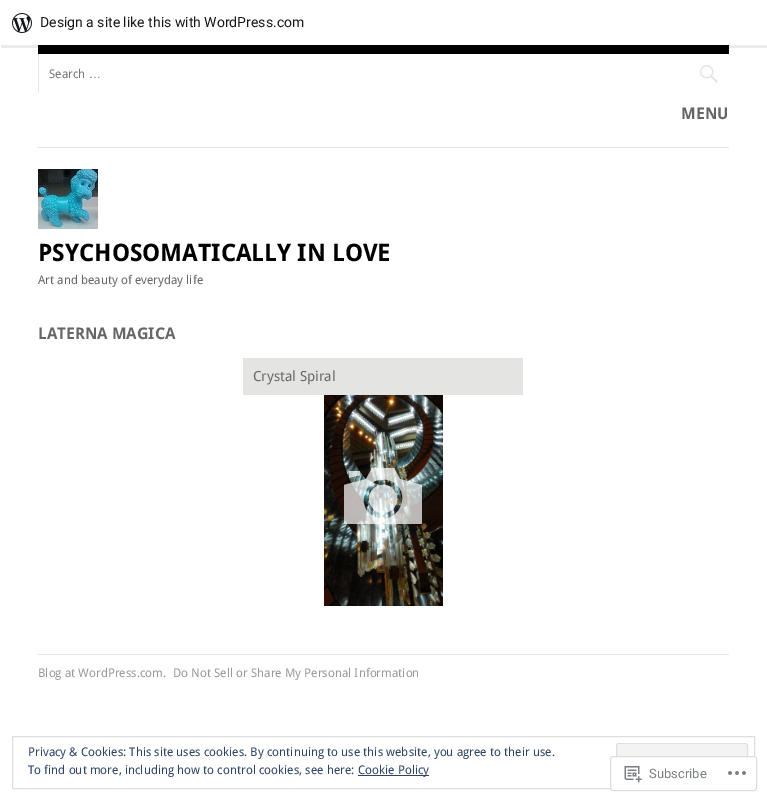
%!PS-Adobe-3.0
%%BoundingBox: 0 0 767 801
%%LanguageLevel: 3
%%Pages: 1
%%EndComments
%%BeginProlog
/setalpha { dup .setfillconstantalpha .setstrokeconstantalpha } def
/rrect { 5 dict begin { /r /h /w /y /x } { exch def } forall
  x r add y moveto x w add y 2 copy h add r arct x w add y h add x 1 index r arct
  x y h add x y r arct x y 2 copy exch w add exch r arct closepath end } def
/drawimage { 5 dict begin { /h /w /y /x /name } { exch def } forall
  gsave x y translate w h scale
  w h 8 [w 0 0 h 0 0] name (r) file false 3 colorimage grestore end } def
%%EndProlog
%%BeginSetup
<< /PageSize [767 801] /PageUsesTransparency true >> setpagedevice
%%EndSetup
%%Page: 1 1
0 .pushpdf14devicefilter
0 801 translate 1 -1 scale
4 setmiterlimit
1 setgray
0 0 767 801 rectfill
0 setgray
38 45 691 9 rectfill
0.08 setalpha
newpath 1 45 moveto 1 48 lineto 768 48 lineto 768 3 lineto 767 3 lineto 767 45 lineto closepath fill
1 setalpha
(images/1.raw) 12 13 20 20 drawimage
0.894 0.894 0.886 setrgbcolor
38 147 691 1 rectfill
38 54 1 39 rectfill
(images/2.raw) 700 65 18 18 drawimage
(images/3.raw) 38 169 60 60 drawimage
243 358 280 37 rectfill
(images/4.raw) 324 395 119 211 drawimage
0.7 setalpha
1 setgray
newpath 400 479 moveto 422 485 lineto 422 524 lineto 344 524 lineto 344 485 lineto 366 479 lineto 372 468 lineto 394 468 lineto closepath 375 517 moveto 399 527 414 491 391 481 curveto 367 471 352 507 375 517 curveto closepath 360 471 moveto 360 475 lineto 349 478 lineto 349 471 lineto closepath 376 487 moveto 392 477 406 502 390 511 curveto 374 520 360 496 376 487 curveto closepath fill
1 setalpha
0.894 0.894 0.886 setrgbcolor
38 654 691 1 rectfill
0.871 setgray
12.5 736.5 742 52 rectstroke
0.953 setgray
616 743 132 39 3 rrect fill
0.976 setgray
newpath 619 745 moveto 745 745 lineto 746 745 747 746 747 747 curveto 747 746 747 744 745 744 curveto 619 744 lineto 617 744 617 746 617 747 curveto 617 746 618 745 619 745 curveto closepath fill
0.871 setgray
616.5 743.5 131 38 2.5 rrect stroke
0.18 0.267 0.404 setrgbcolor
358 775 71 1 rectfill
0.98 setalpha
1 setgray
610 756 147 35 3 rrect fill
0.863 0.863 0.871 setrgbcolor
610.5 756.5 146 34 2.5 rrect stroke
1 setalpha
(images/5.raw) 624 766 18 17 drawimage
(images/6.raw) 728 771 18 4 drawimage
/Roboto-Regular [14 0 0 -14 0 0] selectfont
0.09 setgray
40 27 moveto (Design a site like this with WordPress.com) show
/DroidSans-Regular [12 0 0 -12 0 0] selectfont
0.459 setgray
49 78 moveto (Search) show
/LiberationSans-Regular [12 0 0 -12 0 0] selectfont
89 78 moveto (…) show
/DroidSans-Bold [16 0 0 -16 0 0] selectfont
0.4 setgray
681 119 moveto (MENU) show
/DroidSans-Bold [24 0 0 -24 0 0] selectfont
0 setgray
38 261 moveto (PSYCHOSOMATICALLY IN LOVE) show
/DroidSans-Regular [12 0 0 -12 0 0] selectfont
0.4 setgray
38 284 moveto (Art and beauty of everyday life) show
/DroidSans-Bold [16 0 0 -16 0 0] selectfont
38 339 moveto (LATERNA MAGICA) show
/DroidSans-Regular [14 0 0 -14 0 0] selectfont
253 381 moveto (Crystal Spiral) show
/DroidSans-Regular [12 0 0 -12 0 0] selectfont
0.6 setgray
38 677 moveto (Blog at WordPress.com.) show
173 677 moveto (Do Not Sell or Share My Personal Information) show
0.18 0.267 0.404 setrgbcolor
28 756 moveto (Privacy & Cookies: This site uses cookies. By continuing to use this website, you agree to their use.) show
28 774 moveto (To find out more, including how to control cookies, see here:) show
358 774 moveto (Cookie Policy) show
/Roboto-Regular [13 0 0 -13 0 0] selectfont
0.478 0.494 0.518 setrgbcolor
649 778 moveto (Subscribe) show
.poppdf14devicefilter showpage
%%EOF
